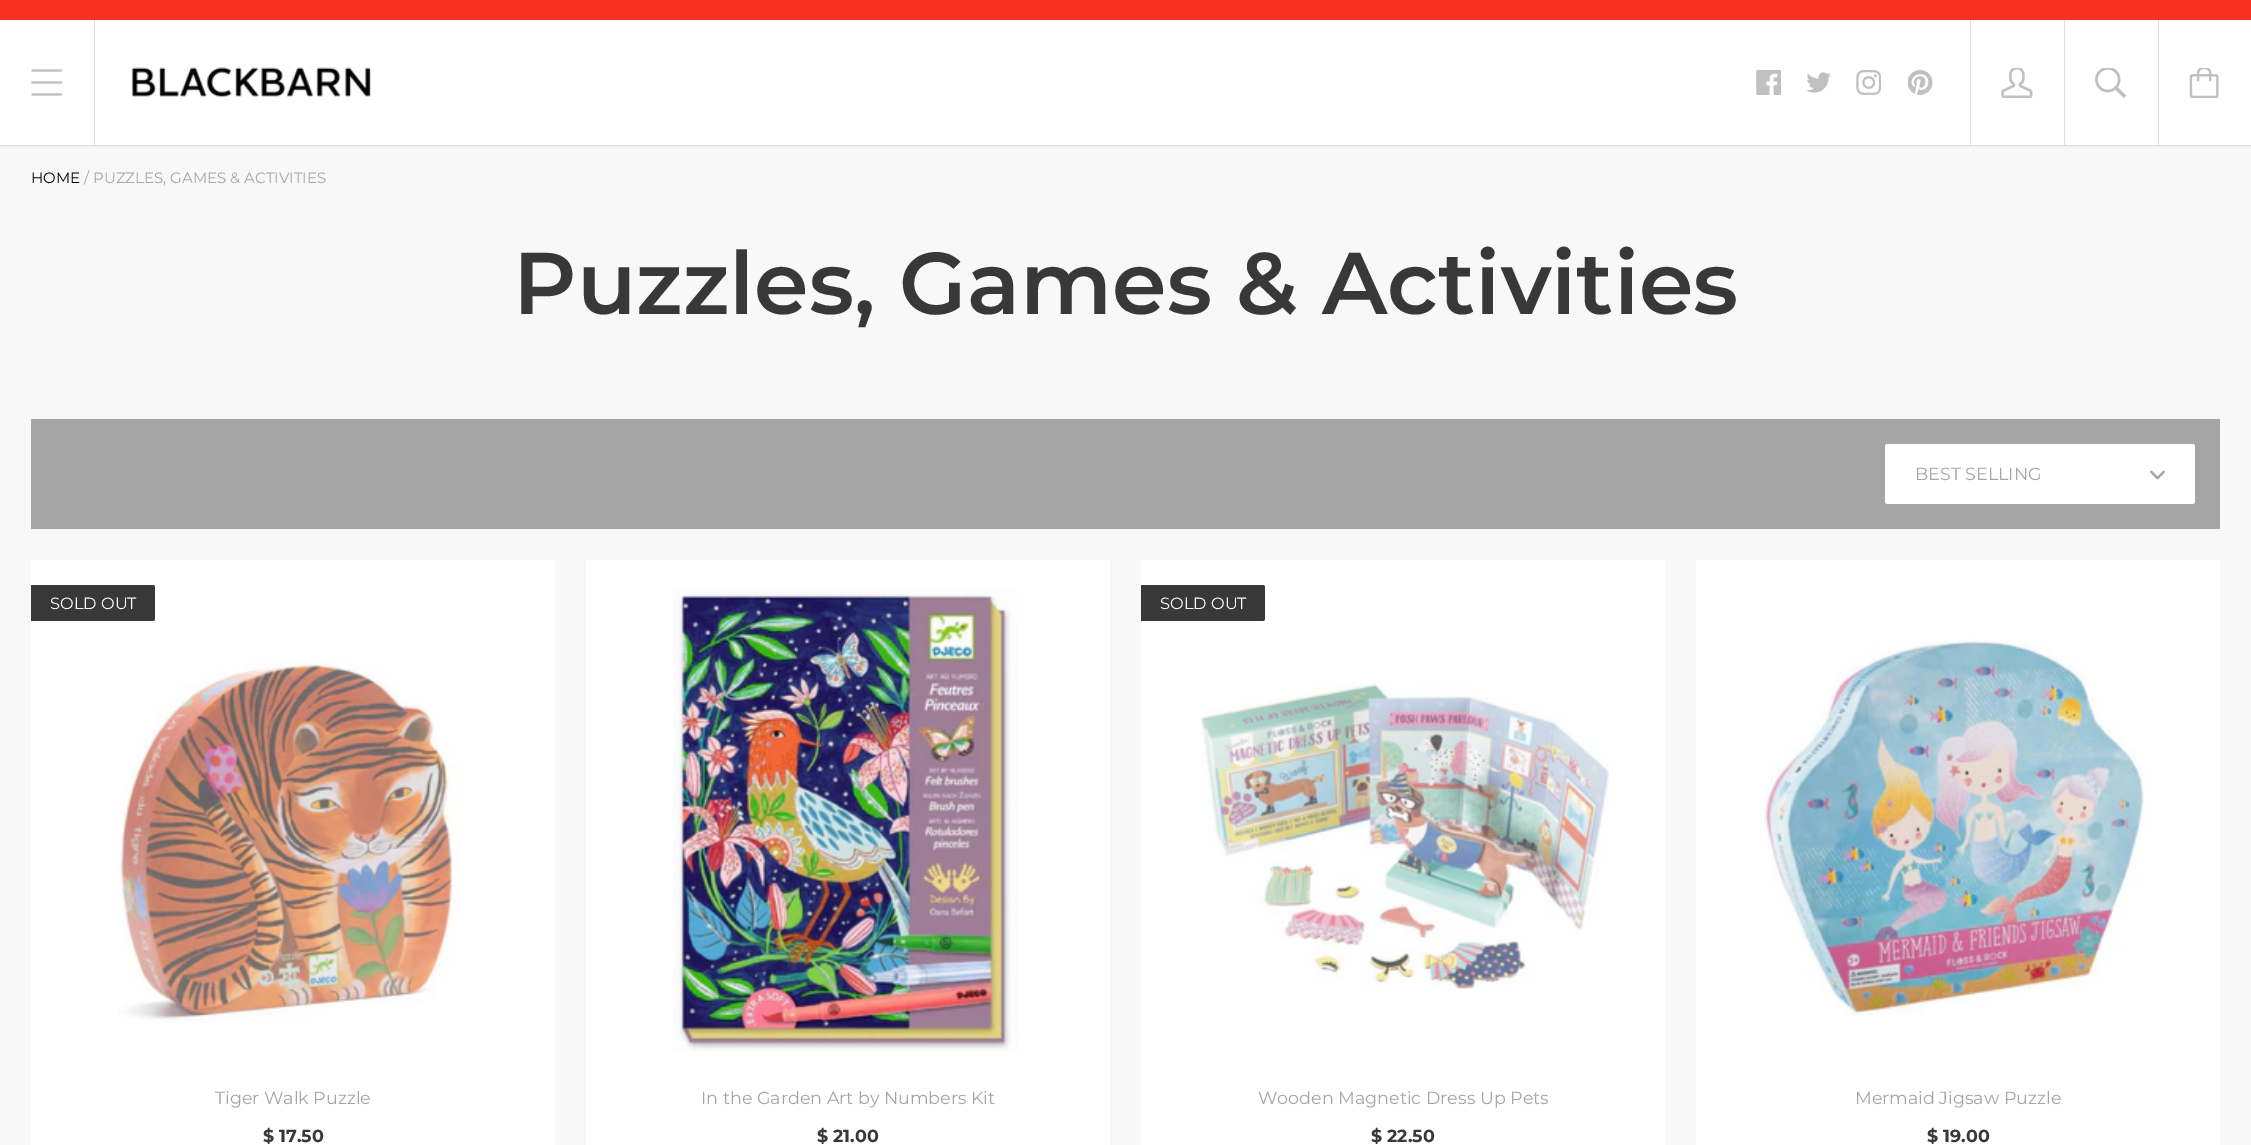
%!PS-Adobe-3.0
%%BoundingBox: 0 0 2251 1145
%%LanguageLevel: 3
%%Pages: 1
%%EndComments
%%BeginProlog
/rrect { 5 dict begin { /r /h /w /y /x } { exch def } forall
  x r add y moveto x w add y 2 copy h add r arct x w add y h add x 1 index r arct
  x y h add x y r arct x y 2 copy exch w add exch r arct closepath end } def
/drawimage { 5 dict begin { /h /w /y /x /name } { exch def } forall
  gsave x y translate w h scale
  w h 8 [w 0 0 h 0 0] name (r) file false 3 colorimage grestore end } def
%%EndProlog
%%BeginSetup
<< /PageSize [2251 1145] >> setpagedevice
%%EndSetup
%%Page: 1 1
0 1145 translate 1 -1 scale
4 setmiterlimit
0.973 setgray
0 0 2251 1145 rectfill
0.973 0.188 0.122 setrgbcolor
0 0 2251 20 rectfill
0.941 setgray
0 146 2251 2 rectfill
1 setgray
0 20 2251 125 rectfill
0.867 setgray
0 145 2251 1 rectfill
(images/1.raw) 31 69 32 27 drawimage
94 20 1 125 rectfill
(images/2.raw) 131 67 241 31 drawimage
(images/3.raw) 1756 70 25 25 drawimage
(images/4.raw) 1806 72 25 21 drawimage
(images/5.raw) 1856 70 25 25 drawimage
(images/6.raw) 1908 70 25 25 drawimage
1970 20 1 125 rectfill
(images/7.raw) 2001 68 32 30 drawimage
2064 20 1 125 rectfill
(images/8.raw) 2095 68 31 30 drawimage
2158 20 1 125 rectfill
(images/9.raw) 2189 68 30 30 drawimage
0.647 setgray
31 419 2189 110 rectfill
1 setgray
1885 444 310 60 2.5 rrect fill
(images/10.raw) 2150 470 15 10 drawimage
31 560 524 585 rectfill
0.22 setgray
newpath 31 585 moveto 152.5 585 lineto 154 585 155 586 155 587.5 curveto 155 618.5 lineto 155 620 154 621 152.5 621 curveto 31 621 lineto closepath fill
(images/11.raw) 119 660 342 363 drawimage
1 setgray
586 560 524 585 rectfill
(images/12.raw) 673 589 344 463 drawimage
1141 560 524 585 rectfill
0.22 setgray
newpath 1141 585 moveto 1262.5 585 lineto 1264 585 1265 586 1265 587.5 curveto 1265 618.5 lineto 1265 620 1264 621 1262.5 621 curveto 1141 621 lineto closepath fill
(images/13.raw) 1200 683 409 308 drawimage
1 setgray
1696 560 524 585 rectfill
(images/14.raw) 1764 639 386 376 drawimage
/Montserrat-Regular [15 0 0 -15 0 0] selectfont
0 setgray
31 183 moveto (HOME) show
0.647 setgray
84 183 moveto (/ PUZZLES, GAMES & ACTIVITIES) show
/Montserrat-SemiBold [87.5 0 0 -87.5 0 0] selectfont
0.22 setgray
513 314 moveto (Puzzles, Games & Activities) show
/Montserrat-Regular [17.5 0 0 -17.5 0 0] selectfont
0.647 setgray
1915 480 moveto (BEST SELLING) show
/Montserrat-Regular [16.25 0 0 -16.25 0 0] selectfont
1 setgray
50 609 moveto (SOLD OUT) show
/Montserrat-Regular [17.5 0 0 -17.5 0 0] selectfont
0.647 setgray
215 1104 moveto (Tiger Walk Puzzle) show
/Montserrat-Bold [17.5 0 0 -17.5 0 0] selectfont
0.22 setgray
263 1142 moveto ($ 17.50) show
/Montserrat-Regular [17.5 0 0 -17.5 0 0] selectfont
0.647 setgray
701 1104 moveto (In the Garden Art by Numbers Kit) show
/Montserrat-Bold [17.5 0 0 -17.5 0 0] selectfont
0.22 setgray
817 1142 moveto ($ 21.00) show
/Montserrat-Regular [16.25 0 0 -16.25 0 0] selectfont
1 setgray
1160 609 moveto (SOLD OUT) show
/Montserrat-Regular [17.5 0 0 -17.5 0 0] selectfont
0.647 setgray
1258 1104 moveto (Wooden Magnetic Dress Up Pets) show
/Montserrat-Bold [17.5 0 0 -17.5 0 0] selectfont
0.22 setgray
1371 1142 moveto ($ 22.50) show
/Montserrat-Regular [17.5 0 0 -17.5 0 0] selectfont
0.647 setgray
1855 1104 moveto (Mermaid Jigsaw Puzzle) show
/Montserrat-Bold [17.5 0 0 -17.5 0 0] selectfont
0.22 setgray
1927 1142 moveto ($ 19.00) show
showpage
%%EOF
